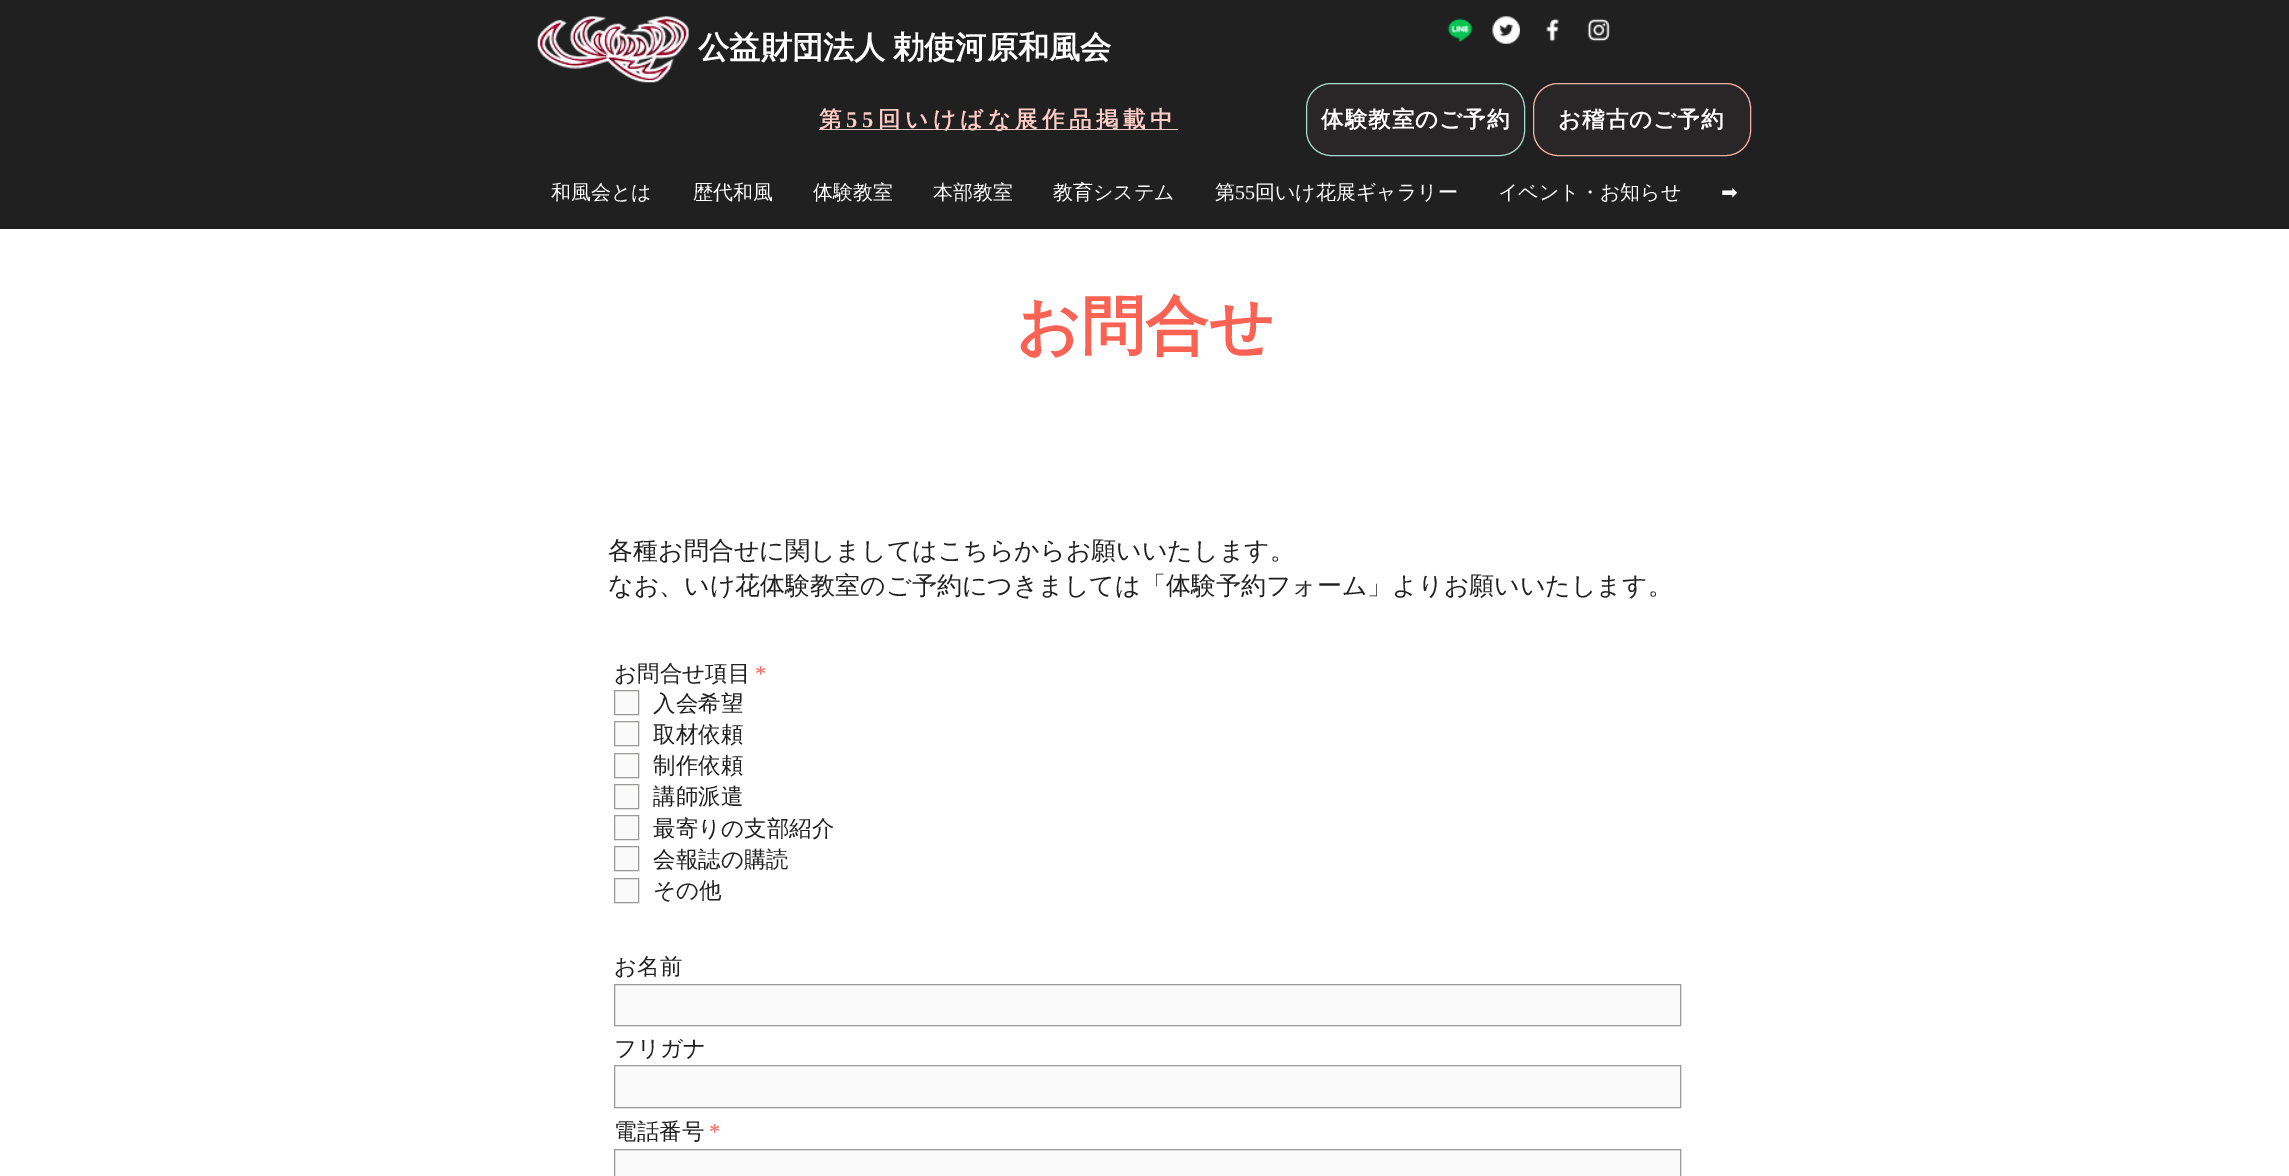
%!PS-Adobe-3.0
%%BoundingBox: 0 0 2289 1176
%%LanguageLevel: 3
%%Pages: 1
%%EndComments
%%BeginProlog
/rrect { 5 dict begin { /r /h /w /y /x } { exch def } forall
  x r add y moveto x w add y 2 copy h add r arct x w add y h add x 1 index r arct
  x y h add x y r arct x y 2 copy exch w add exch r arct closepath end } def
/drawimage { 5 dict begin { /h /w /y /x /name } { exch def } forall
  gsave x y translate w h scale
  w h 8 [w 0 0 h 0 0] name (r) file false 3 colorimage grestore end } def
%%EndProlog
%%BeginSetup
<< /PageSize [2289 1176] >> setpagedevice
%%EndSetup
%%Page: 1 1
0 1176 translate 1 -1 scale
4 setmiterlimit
1 setgray
0 0 2289 1176 rectfill
0.125 setgray
0 0 2289 229 rectfill
(images/1.raw) 537 16 152 67 drawimage
(images/2.raw) 1447 18 26 25 drawimage
(images/3.raw) 1492 16 28 28 drawimage
(images/4.raw) 1546 18 13 24 drawimage
(images/5.raw) 1587 18 23 24 drawimage
0.992 0.792 0.773 setrgbcolor
819 129 359 1 rectfill
0.157 0.149 0.149 setrgbcolor
1306.5 83.5 218 72 24.5 rrect gsave fill grestore
0.675 0.851 0.808 setrgbcolor
stroke
0.157 0.149 0.149 setrgbcolor
1533.5 83.5 217 72 24.5 rrect gsave fill grestore
0.988 0.686 0.659 setrgbcolor
stroke
0.98 setgray
newpath 614.5 690.5 moveto 638.5 690.5 lineto 638.5 714.5 lineto 614.5 714.5 lineto closepath gsave fill grestore
0.6 0.6 0.592 setrgbcolor
stroke
0.98 setgray
newpath 614.5 721.5 moveto 638.5 721.5 lineto 638.5 745.5 lineto 614.5 745.5 lineto closepath gsave fill grestore
0.6 0.6 0.592 setrgbcolor
stroke
0.98 setgray
newpath 614.5 753.5 moveto 638.5 753.5 lineto 638.5 777.5 lineto 614.5 777.5 lineto closepath gsave fill grestore
0.6 0.6 0.592 setrgbcolor
stroke
0.98 setgray
newpath 614.5 784.5 moveto 638.5 784.5 lineto 638.5 808.5 lineto 614.5 808.5 lineto closepath gsave fill grestore
0.6 0.6 0.592 setrgbcolor
stroke
0.98 setgray
newpath 614.5 815.5 moveto 638.5 815.5 lineto 638.5 839.5 lineto 614.5 839.5 lineto closepath gsave fill grestore
0.6 0.6 0.592 setrgbcolor
stroke
0.98 setgray
newpath 614.5 846.5 moveto 638.5 846.5 lineto 638.5 870.5 lineto 614.5 870.5 lineto closepath gsave fill grestore
0.6 0.6 0.592 setrgbcolor
stroke
0.98 setgray
newpath 614.5 878.5 moveto 638.5 878.5 lineto 638.5 902.5 lineto 614.5 902.5 lineto closepath gsave fill grestore
0.6 0.6 0.592 setrgbcolor
stroke
0.98 setgray
newpath 614.5 984.5 moveto 1680.5 984.5 lineto 1680.5 1025.5 lineto 614.5 1025.5 lineto closepath gsave fill grestore
0.6 0.6 0.592 setrgbcolor
stroke
0.98 setgray
newpath 614.5 1065.5 moveto 1680.5 1065.5 lineto 1680.5 1107.5 lineto 614.5 1107.5 lineto closepath gsave fill grestore
0.6 0.6 0.592 setrgbcolor
stroke
0.98 setgray
newpath 614.5 1149.5 moveto 1680.5 1149.5 lineto 1680.5 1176.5 lineto 614.5 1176.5 lineto closepath gsave fill grestore
0.6 0.6 0.592 setrgbcolor
stroke
/WenQuanYiZenHei-Bold [31.25 0 0 -31.25 0 0] selectfont
1 setgray
698 58 moveto -2 0 32 (公益財団法人 勅使河原和風会) widthshow
/WenQuanYiZenHei-Bold [22.5 0 0 -22.5 0 0] selectfont
0.992 0.792 0.773 setrgbcolor
819 127 moveto 4.5 0 (第) ashow
/LiberationSerif-Bold [22.5 0 0 -22.5 0 0] selectfont
846 127 moveto 4.5 0 (55) ashow
/WenQuanYiZenHei-Bold [22.5 0 0 -22.5 0 0] selectfont
878 127 moveto 4.5 0 (回いけばな展作品掲載中) ashow
1 setgray
1321 127 moveto 1 0 (体験教室のご予約) ashow
1558 127 moveto 1 0 (お稽古のご予約) ashow
/WenQuanYiZenHei-Medium [20 0 0 -20 0 0] selectfont
551 199 moveto (和風会とは) show
693 199 moveto (歴代和風) show
813 199 moveto (体験教室) show
933 199 moveto (本部教室) show
1053 199 moveto (教育システム) show
1215 199 moveto (第) show
/LiberationSerif-Regular [20 0 0 -20 0 0] selectfont
1235 199 moveto (55) show
/WenQuanYiZenHei-Medium [20 0 0 -20 0 0] selectfont
1255 199 moveto (回いけ花展ギャラリー) show
1498 199 moveto (イベント・お知らせ) show
/DejaVuSans-Regular [20 0 0 -20 0 0] selectfont
1721 199 moveto (➡) show
/WenQuanYiZenHei-Bold [63.75 0 0 -63.75 0 0] selectfont
0.98 0.384 0.329 setrgbcolor
1016 348 moveto (お問合せ) show
/WenQuanYiZenHei-Medium [25 0 0 -25 0 0] selectfont
0.125 setgray
608 559 moveto (各種お問合せに関しましてはこちらからお願いいたします。) show
608 594 moveto (なお、いけ花体験教室のご予約につきましては「体験予約フォーム」よりお願いいたします。) show
/WenQuanYiZenHei-Medium [22.5 0 0 -22.5 0 0] selectfont
614 681 moveto (お問合せ項目) show
/LiberationSerif-Regular [22.5 0 0 -22.5 0 0] selectfont
0.98 0.384 0.329 setrgbcolor
755 681 moveto (*) show
/WenQuanYiZenHei-Medium [22.5 0 0 -22.5 0 0] selectfont
0.125 setgray
653 711 moveto (入会希望) show
653 742 moveto (取材依頼) show
653 773 moveto (制作依頼) show
653 804 moveto (講師派遣) show
653 836 moveto (最寄りの支部紹介) show
653 867 moveto (会報誌の購読) show
653 898 moveto (その他) show
614 974 moveto (お名前) show
614 1056 moveto (フリガナ) show
614 1139 moveto (電話番号) show
/LiberationSerif-Regular [22.5 0 0 -22.5 0 0] selectfont
0.98 0.384 0.329 setrgbcolor
709 1139 moveto (*) show
showpage
%%EOF
